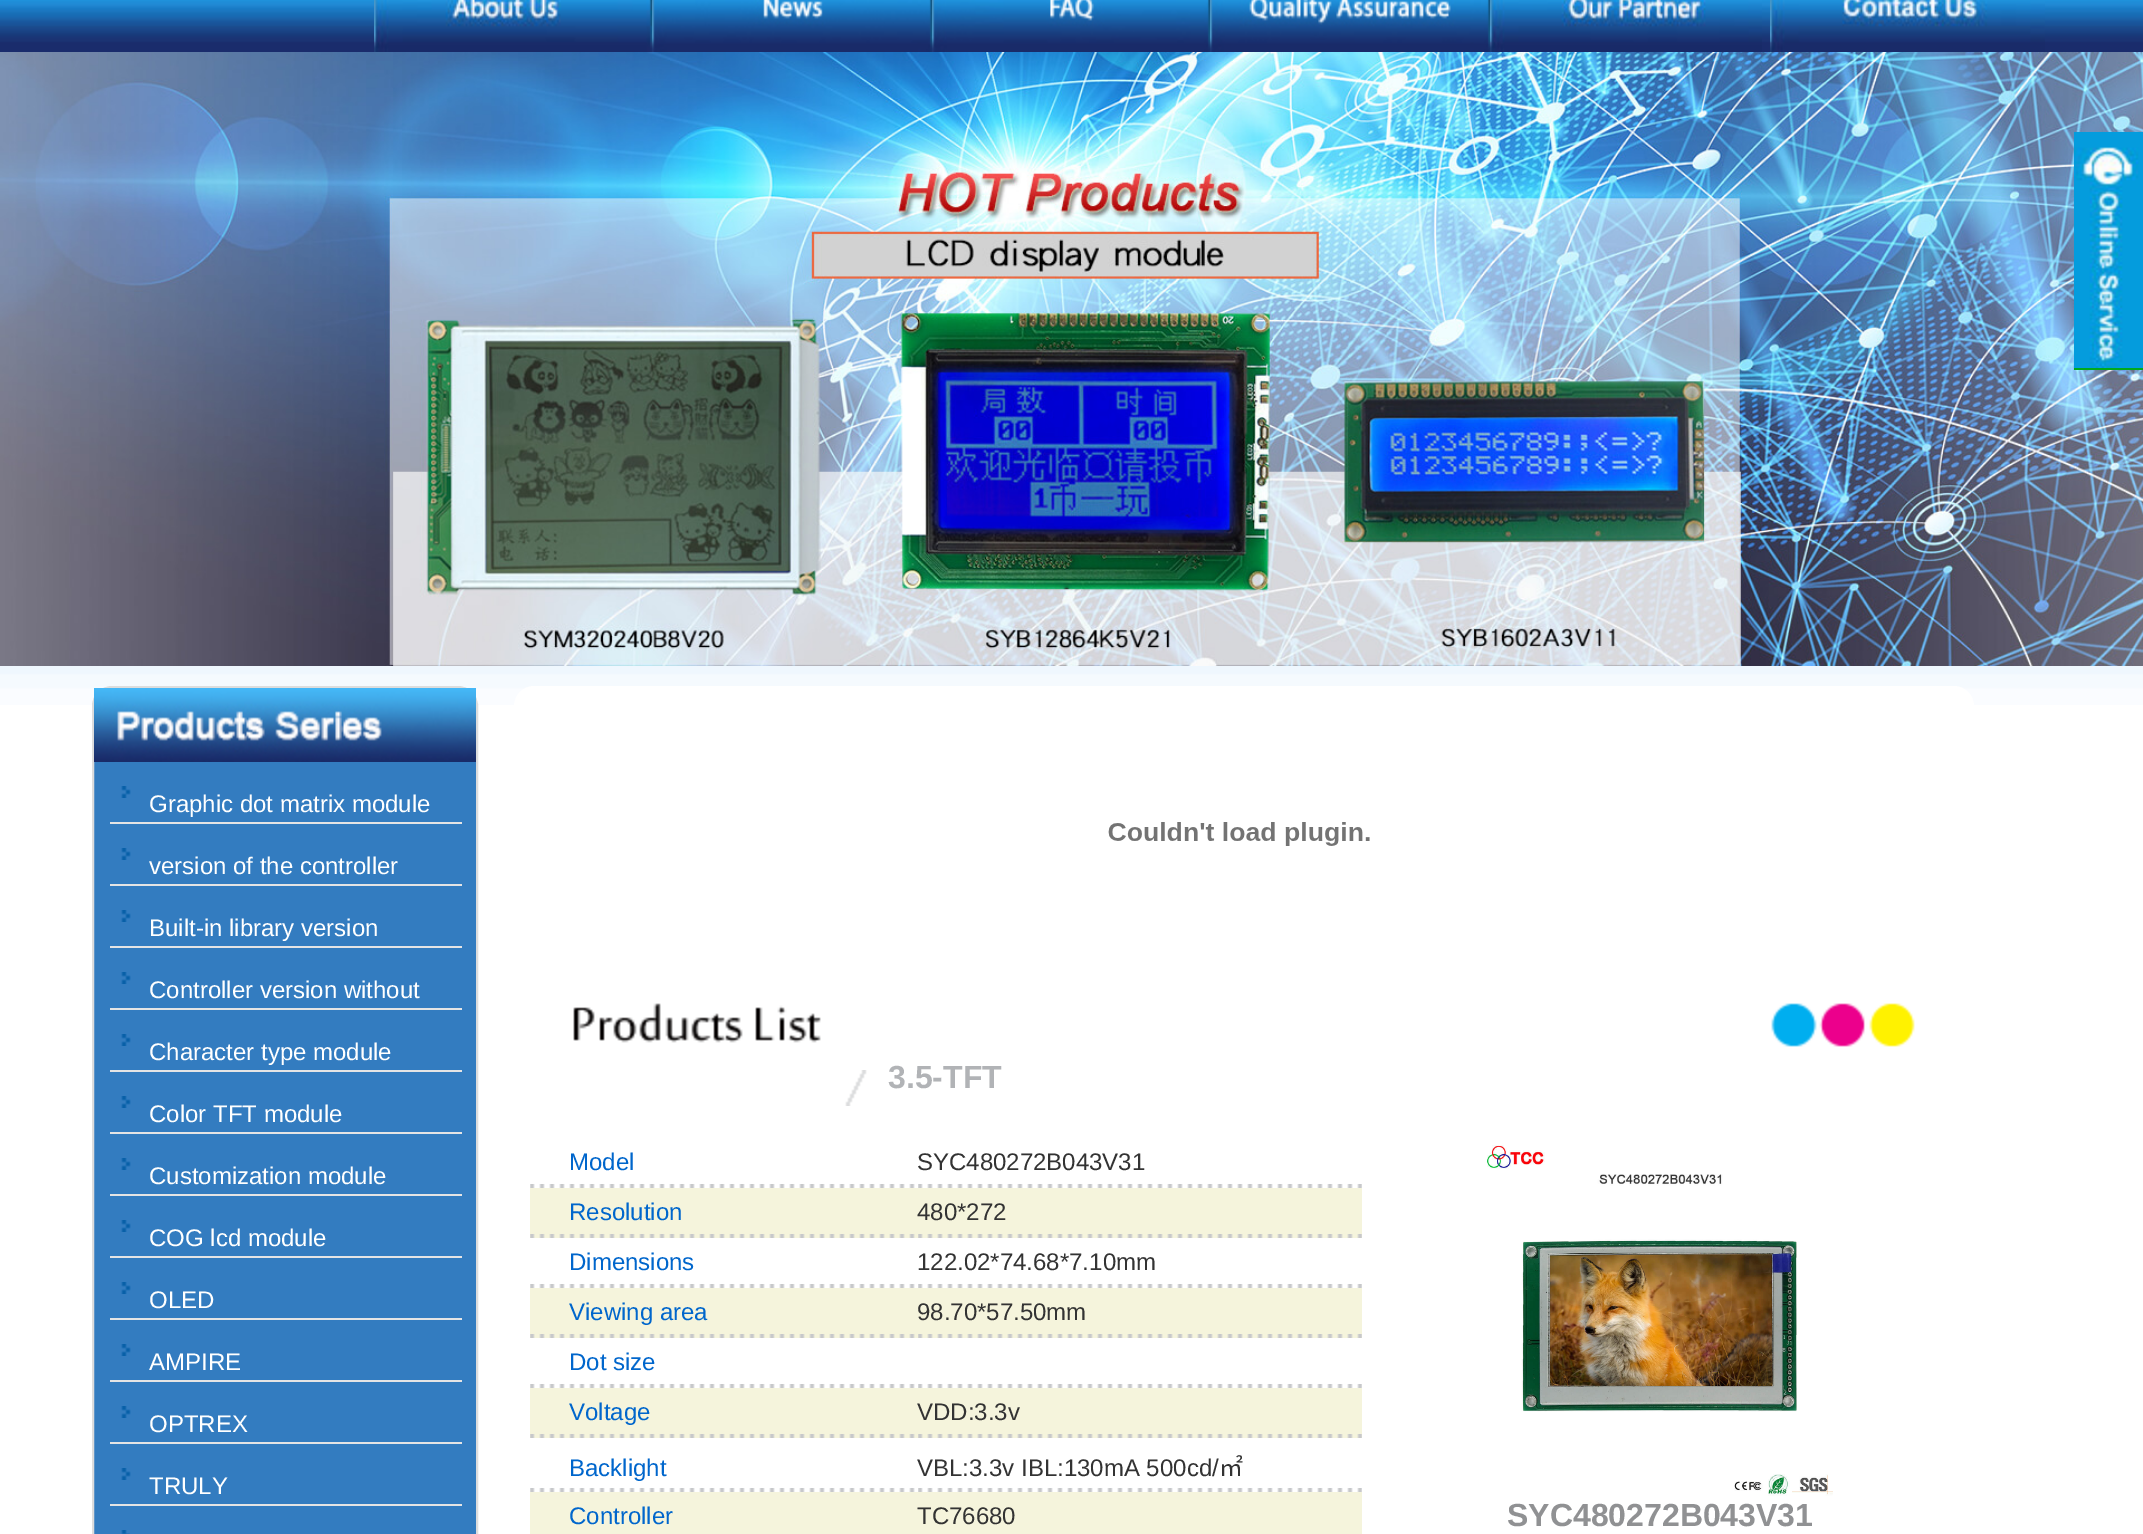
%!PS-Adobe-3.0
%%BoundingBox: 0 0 2143 1534
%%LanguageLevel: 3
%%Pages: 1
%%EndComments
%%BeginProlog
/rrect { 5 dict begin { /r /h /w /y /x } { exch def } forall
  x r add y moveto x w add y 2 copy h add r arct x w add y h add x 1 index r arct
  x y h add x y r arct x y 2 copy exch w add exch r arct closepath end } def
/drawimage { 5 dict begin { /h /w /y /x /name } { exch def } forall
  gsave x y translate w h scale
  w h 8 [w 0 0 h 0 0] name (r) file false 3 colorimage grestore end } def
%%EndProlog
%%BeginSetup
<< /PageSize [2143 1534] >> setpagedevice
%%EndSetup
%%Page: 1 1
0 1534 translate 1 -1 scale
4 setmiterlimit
1 setgray
0 0 2143 1534 rectfill
(images/1.raw) 0 0 2143 52 drawimage
(images/2.raw) 374 0 278 52 drawimage
(images/3.raw) 652 0 280 52 drawimage
(images/4.raw) 932 0 278 52 drawimage
(images/5.raw) 1210 0 280 52 drawimage
(images/6.raw) 1490 0 272 52 drawimage
(images/7.raw) 1770 0 275 52 drawimage
(images/10.raw) 0 52 2143 614 drawimage
0 0.663 0.11 setrgbcolor
2074 368 69 2 rectfill
(images/8.raw) 2074 132 69 236 drawimage
(images/9.raw) 0 666 2143 39 drawimage
0.2 0.486 0.753 setrgbcolor
newpath 112 687 moveto 458 687 lineto 468.5 687 477 695.5 477 706 curveto 477 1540 lineto 477 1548.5 470.5 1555 462 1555 curveto 108 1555 lineto 99.5 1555 93 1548.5 93 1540 curveto 93 706 lineto 93 695.5 101.5 687 112 687 curveto closepath gsave fill grestore
0.867 setgray
2 setlinewidth
stroke
(images/11.raw) 94 688 382 74 drawimage
0.894 0.894 0.898 setrgbcolor
110 822 352 2 rectfill
(images/12.raw) 121 786 10 12 drawimage
110 884 352 2 rectfill
(images/12.raw) 121 848 10 12 drawimage
110 946 352 2 rectfill
(images/12.raw) 121 910 10 12 drawimage
110 1008 352 2 rectfill
(images/12.raw) 121 972 10 12 drawimage
110 1070 352 2 rectfill
(images/12.raw) 121 1034 10 12 drawimage
110 1132 352 2 rectfill
(images/12.raw) 121 1096 10 12 drawimage
110 1194 352 2 rectfill
(images/12.raw) 121 1158 10 12 drawimage
110 1256 352 2 rectfill
(images/12.raw) 121 1220 10 12 drawimage
110 1318 352 2 rectfill
(images/12.raw) 121 1282 10 12 drawimage
110 1380 352 2 rectfill
(images/12.raw) 121 1344 10 12 drawimage
110 1442 352 2 rectfill
(images/12.raw) 121 1406 10 12 drawimage
110 1504 352 2 rectfill
(images/12.raw) 121 1468 10 12 drawimage
(images/13.raw) 121 1530 9 4 drawimage
1 setgray
514 686 1460 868 20 rrect fill
(images/14.raw) 1108 822 262 24 drawimage
(images/15.raw) 573 1003 1342 44 drawimage
(images/16.raw) 845 1070 22 36 drawimage
(images/17.raw) 530 1184 385 4 drawimage
(images/18.raw) 918 1184 444 4 drawimage
0.961 0.957 0.863 setrgbcolor
530 1188 832 50 rectfill
(images/19.raw) 530 1234 385 4 drawimage
(images/20.raw) 918 1234 444 4 drawimage
(images/17.raw) 530 1284 385 4 drawimage
(images/18.raw) 918 1284 444 4 drawimage
530 1288 832 50 rectfill
(images/19.raw) 530 1334 385 4 drawimage
(images/20.raw) 918 1334 444 4 drawimage
(images/17.raw) 530 1384 385 4 drawimage
(images/18.raw) 918 1384 444 4 drawimage
530 1388 832 50 rectfill
(images/19.raw) 530 1434 385 4 drawimage
(images/20.raw) 918 1434 444 4 drawimage
(images/17.raw) 530 1488 385 4 drawimage
(images/18.raw) 918 1488 444 4 drawimage
530 1492 832 42 rectfill
(images/21.raw) 1487 1145 346 351 drawimage
/LiberationSans-Regular [24 0 0 -24 0 0] selectfont
1 setgray
149 812 moveto (Graphic dot matrix module) show
149 874 moveto (version of the controller) show
149 936 moveto (Built-in library version) show
149 998 moveto (Controller version without) show
149 1060 moveto (Character type module) show
149 1122 moveto (Color TFT module) show
149 1184 moveto (Customization module) show
149 1246 moveto (COG lcd module) show
149 1308 moveto (OLED) show
149 1370 moveto (AMPIRE) show
149 1432 moveto (OPTREX) show
149 1494 moveto (TRULY) show
/LiberationSans-Bold [32 0 0 -32 0 0] selectfont
0.694 0.702 0.714 setrgbcolor
888 1088 moveto (3.5-TFT) show
/LiberationSans-Regular [24 0 0 -24 0 0] selectfont
0 0.4 0.8 setrgbcolor
569 1170 moveto (Model) show
0.2 setgray
917 1170 moveto (SYC480272B043V31) show
0 0.4 0.8 setrgbcolor
569 1220 moveto (Resolution) show
0.2 setgray
917 1220 moveto (480*272) show
0 0.4 0.8 setrgbcolor
569 1270 moveto (Dimensions) show
0.2 setgray
917 1270 moveto (122.02*74.68*7.10mm) show
0 0.4 0.8 setrgbcolor
569 1320 moveto (Viewing area) show
0.2 setgray
917 1320 moveto (98.70*57.50mm) show
0 0.4 0.8 setrgbcolor
569 1370 moveto (Dot size) show
569 1420 moveto (Voltage) show
0.2 setgray
917 1420 moveto (VDD:3.3v) show
0 0.4 0.8 setrgbcolor
569 1476 moveto (Backlight) show
0.2 setgray
917 1476 moveto (VBL:3.3v IBL:130mA 500cd/) show
/NotoSansCJKSC-Regular [24 0 0 -24 0 0] selectfont
1219 1476 moveto (㎡) show
/LiberationSans-Regular [24 0 0 -24 0 0] selectfont
0 0.4 0.8 setrgbcolor
569 1524 moveto (Controller) show
0.2 setgray
917 1524 moveto (TC76680) show
/LiberationSans-Bold [32 0 0 -32 0 0] selectfont
0.565 0.569 0.576 setrgbcolor
1507 1526 moveto (SYC480272B043V31) show
showpage
%%EOF
